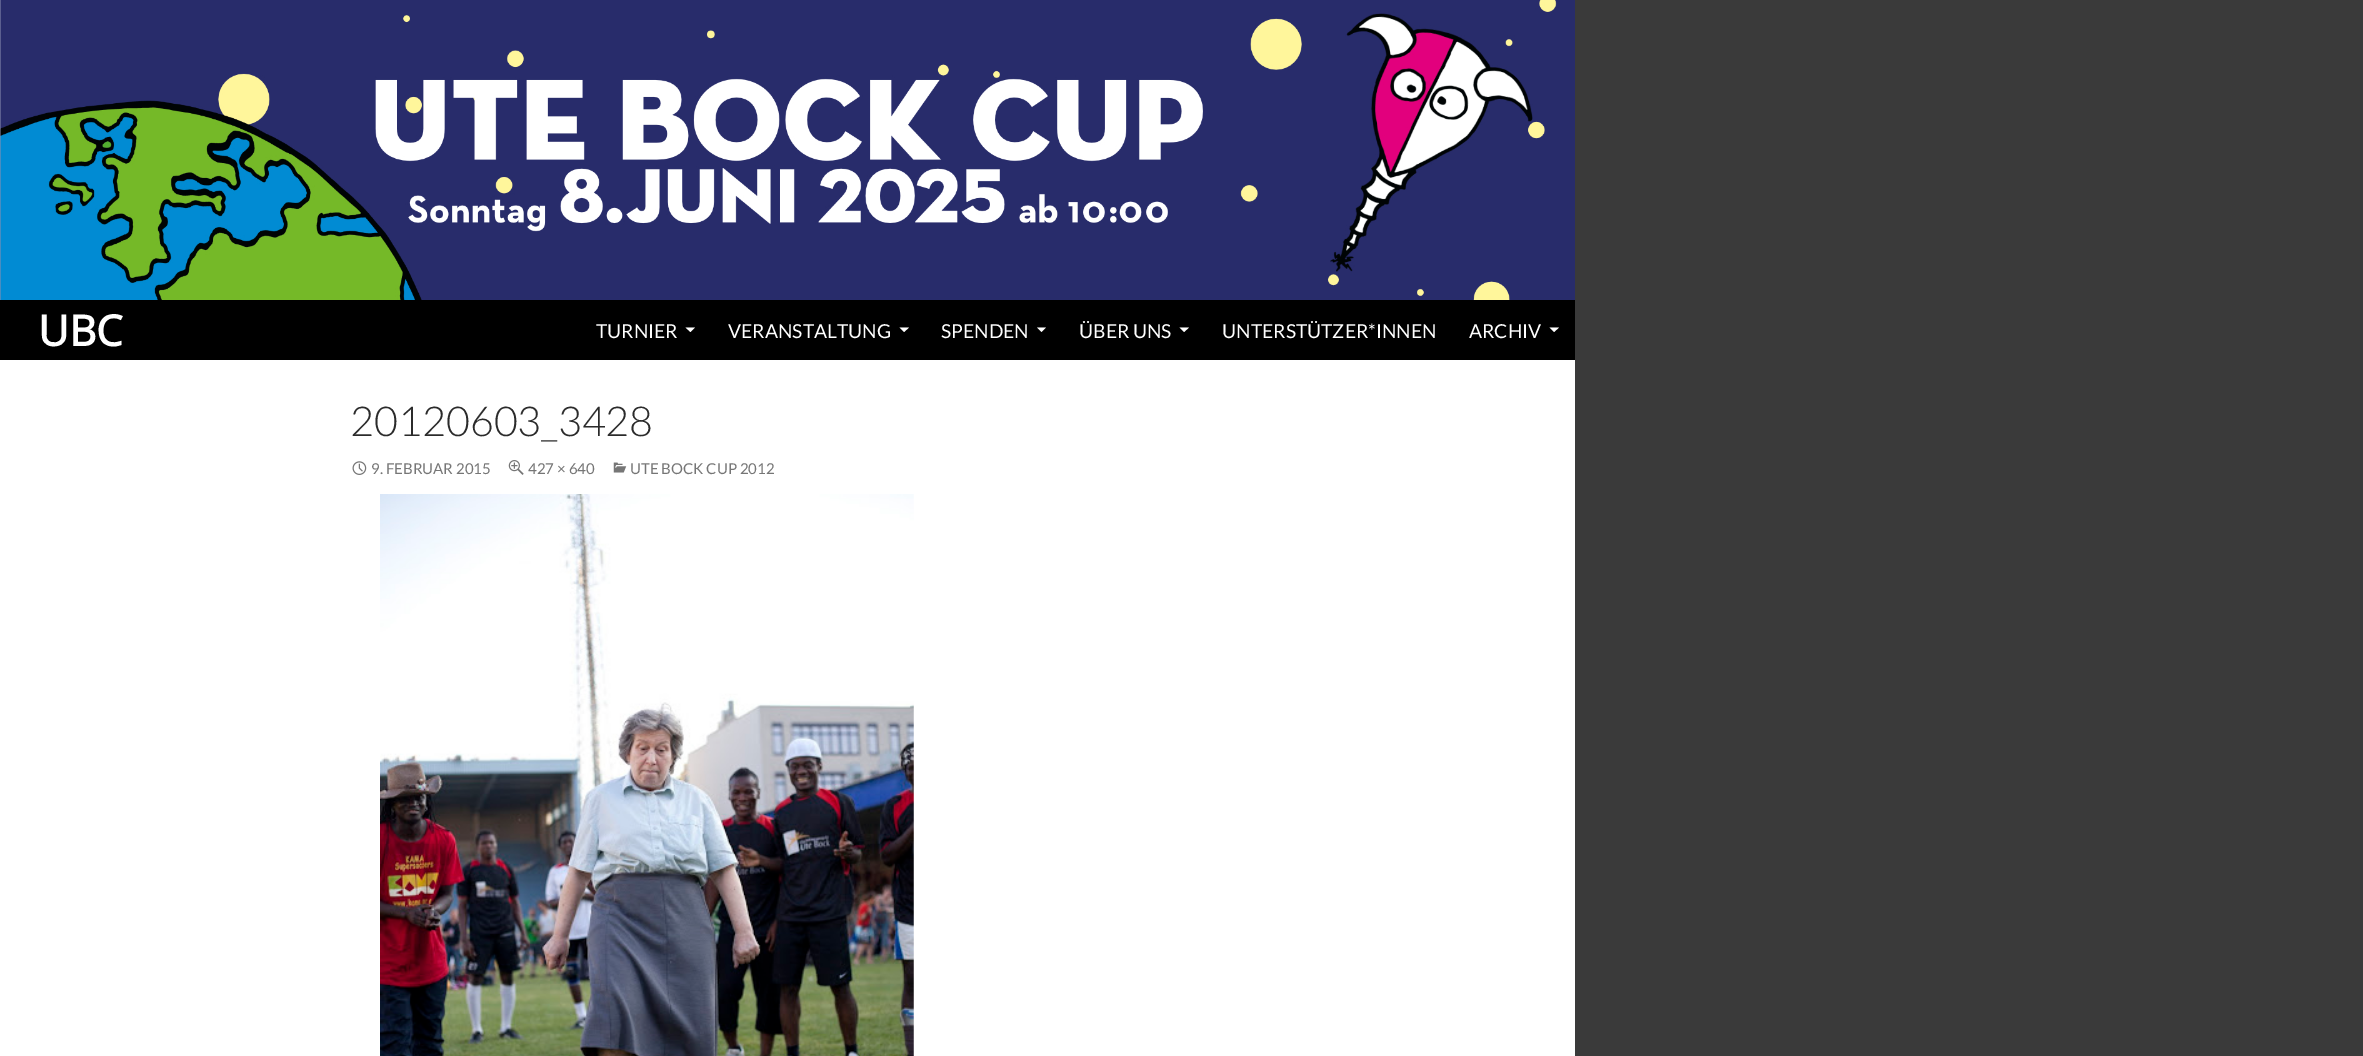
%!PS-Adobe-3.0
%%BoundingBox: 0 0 2363 1056
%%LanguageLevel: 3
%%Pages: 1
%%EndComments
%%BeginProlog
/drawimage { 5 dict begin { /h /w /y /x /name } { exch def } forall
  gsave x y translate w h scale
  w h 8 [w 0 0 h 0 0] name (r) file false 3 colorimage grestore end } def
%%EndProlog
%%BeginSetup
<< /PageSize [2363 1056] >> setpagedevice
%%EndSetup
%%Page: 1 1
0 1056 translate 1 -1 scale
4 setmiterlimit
0.227 setgray
0 0 2363 1056 rectfill
1 setgray
0 360 1575 696 rectfill
(images/1.raw) 0 0 1575 300 drawimage
0 setgray
0 300 1575 60 rectfill
1 setgray
newpath 685.5 327.5 moveto 690.5 332 lineto 695 327.5 lineto closepath fill
newpath 899.5 327.5 moveto 904 332 lineto 909 327.5 lineto closepath fill
newpath 1037 327.5 moveto 1041.5 332 lineto 1046 327.5 lineto closepath fill
newpath 1179.5 327.5 moveto 1184 332 lineto 1189 327.5 lineto closepath fill
newpath 1549.5 327.5 moveto 1554 332 lineto 1559 327.5 lineto closepath fill
(images/2.raw) 352 461 15 14 drawimage
(images/3.raw) 508 460 16 15 drawimage
(images/4.raw) 613 462 14 11 drawimage
(images/5.raw) 380 494 534 562 drawimage
/OpenSans-Bold [42.5 0 0 -42.5 0 0] selectfont
38 346 moveto (UBC) show
/Lato-Regular [19.25 0 0 -19.25 0 0] selectfont
596 338 moveto (TURNIER) show
728 338 moveto (VERANSTALTUNG) show
941 338 moveto (SPENDEN) show
1079 338 moveto (ÜBER UNS) show
1222 338 moveto (UNTERSTÜTZER*INNEN) show
1469 338 moveto (ARCHIV) show
/Lato-Light [41.25 0 0 -41.25 0 0] selectfont
0.169 setgray
350 436 moveto (20120603_3428) show
/Lato-Regular [15 0 0 -15 0 0] selectfont
0.463 setgray
371 474 moveto (9. FEBRUAR 2015) show
528 474 moveto (427 × 640) show
630 474 moveto (UTE BOCK CUP 2012) show
showpage
%%EOF
